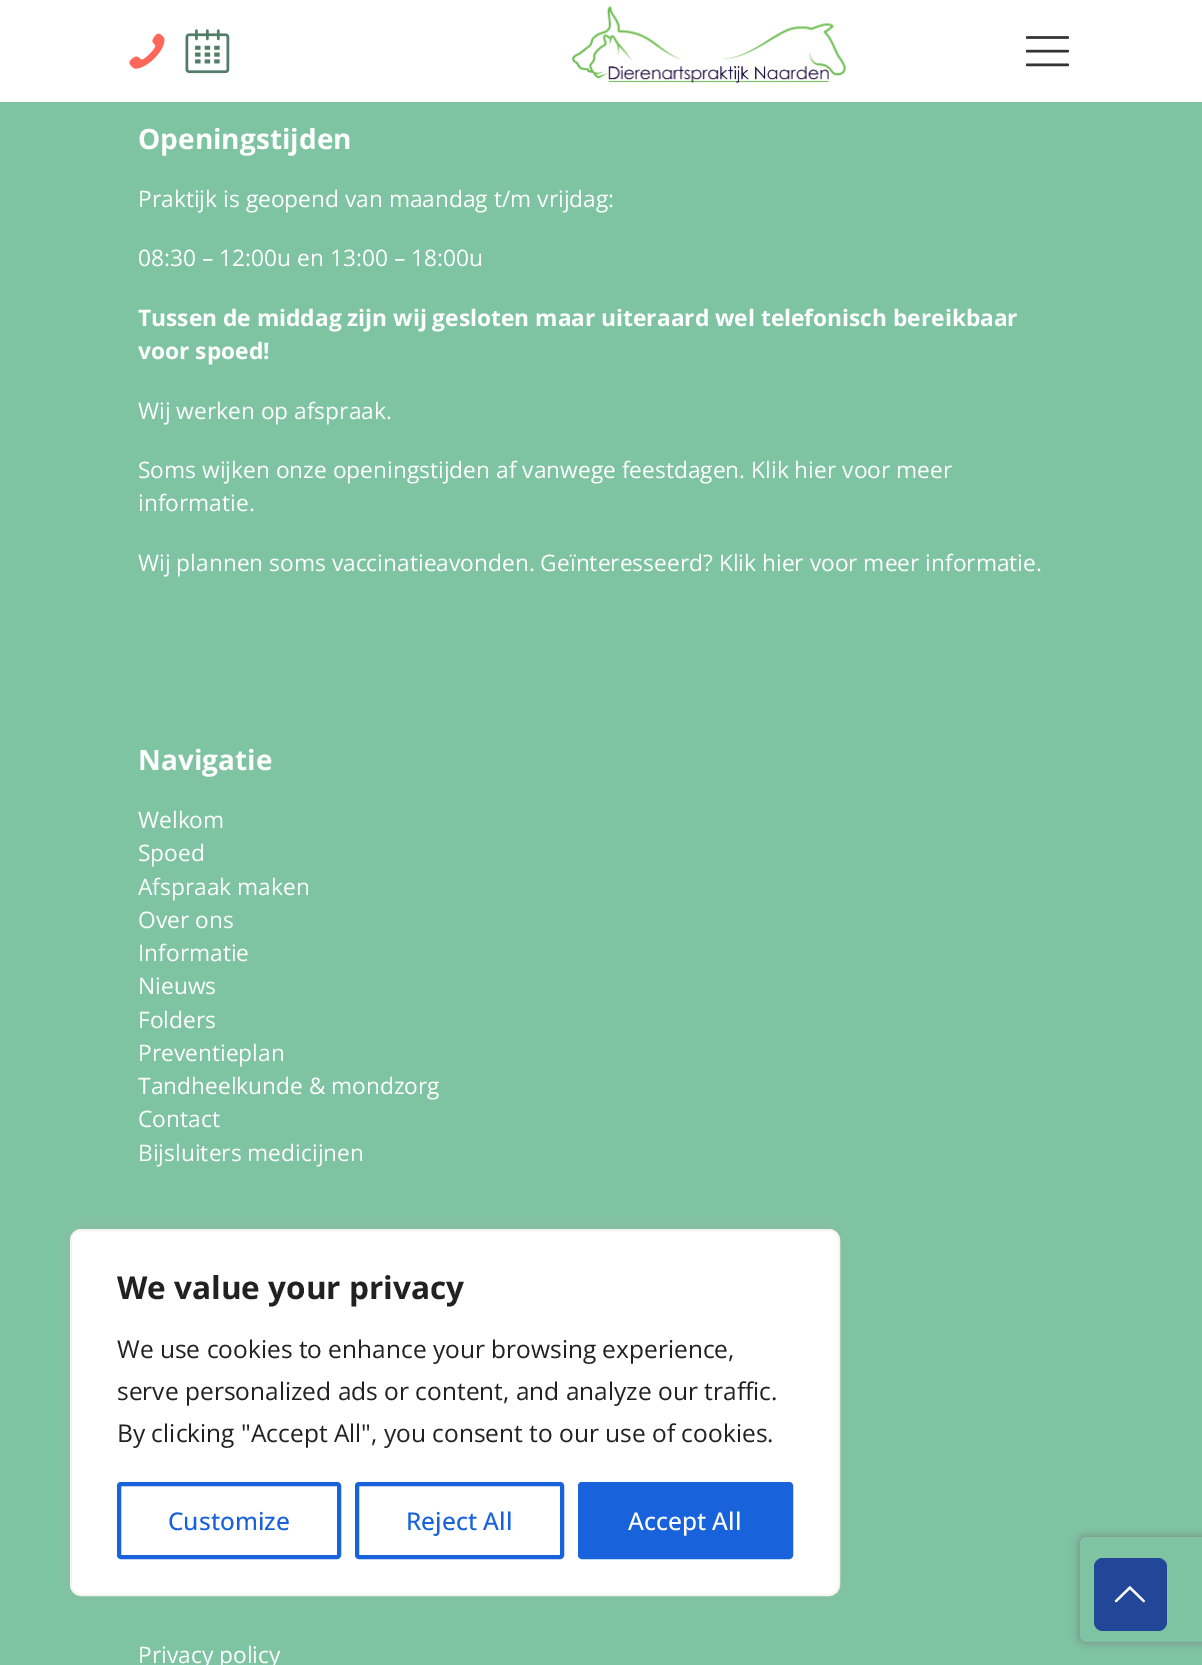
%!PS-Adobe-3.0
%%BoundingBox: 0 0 1202 1665
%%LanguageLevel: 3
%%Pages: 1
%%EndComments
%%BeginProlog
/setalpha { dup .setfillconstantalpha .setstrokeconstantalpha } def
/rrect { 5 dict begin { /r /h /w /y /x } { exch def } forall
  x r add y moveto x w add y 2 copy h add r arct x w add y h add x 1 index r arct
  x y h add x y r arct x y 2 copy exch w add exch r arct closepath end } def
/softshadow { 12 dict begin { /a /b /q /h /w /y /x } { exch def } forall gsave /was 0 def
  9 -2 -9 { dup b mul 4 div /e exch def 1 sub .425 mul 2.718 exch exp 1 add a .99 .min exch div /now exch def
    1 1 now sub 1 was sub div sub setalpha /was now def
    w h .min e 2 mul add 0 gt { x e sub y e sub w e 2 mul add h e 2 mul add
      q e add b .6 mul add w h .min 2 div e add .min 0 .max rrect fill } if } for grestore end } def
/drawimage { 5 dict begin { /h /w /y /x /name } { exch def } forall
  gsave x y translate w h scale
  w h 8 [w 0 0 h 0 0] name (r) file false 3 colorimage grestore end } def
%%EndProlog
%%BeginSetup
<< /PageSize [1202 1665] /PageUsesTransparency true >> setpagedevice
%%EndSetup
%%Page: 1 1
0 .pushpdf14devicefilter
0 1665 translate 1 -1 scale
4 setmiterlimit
0.494 0.769 0.635 setrgbcolor
0 0 1202 1665 rectfill
1 setgray
0 0 1202 102 rectfill
(images/1.raw) 129 33 36 36 drawimage
(images/2.raw) 185 29 45 45 drawimage
(images/3.raw) 572 6 275 78 drawimage
(images/4.raw) 1026 36 43 31 drawimage
0.675 0.671 0.671 setrgbcolor
70 1227 770 367 11 9 0.3 softshadow
1 setgray
71 1230 768 365 10 rrect gsave fill grestore
0.957 setgray
2 setlinewidth
stroke
0.094 0.388 0.863 setrgbcolor
4 setlinewidth
119 1484 220 73 2 rrect stroke
357 1484 205 73 2 rrect stroke
580 1484 211 73 2 rrect gsave fill grestore
stroke
gsave
newpath 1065 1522 moveto 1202 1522 lineto 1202 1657 lineto 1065 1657 lineto closepath 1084 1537 moveto 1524 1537 lineto 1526 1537 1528 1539 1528 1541 curveto 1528 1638 lineto 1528 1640 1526 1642 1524 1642 curveto 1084 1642 lineto 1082 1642 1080 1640 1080 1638 curveto 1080 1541 lineto 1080 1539 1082 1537 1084 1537 curveto closepath eoclip newpath
0.502 setgray
1080 1537 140 105 4 4.5 1 softshadow
grestore
0.133 0.278 0.596 setrgbcolor
1094 1558 73 73 9 rrect fill
(images/5.raw) 1114 1586 31 17 drawimage
/OpenSans-Bold [28 0 0 -28 0 0] selectfont
1 setgray
138 149 moveto (Openingstijden) show
0.494 0.769 0.635 setrgbcolor
216 127 99 1 rectfill
/OpenSans-Regular [22.75 0 0 -22.75 0 0] selectfont
1 setgray
138 207 moveto (Praktijk is geopend van maandag t/m vrijdag:) show
138 266 moveto (08:30 – 12:00u en 13:00 – 18:00u) show
/OpenSans-Bold [22.75 0 0 -22.75 0 0] selectfont
138 326 moveto (Tussen de middag zijn wij gesloten maar uiteraard wel telefonisch bereikbaar) show
138 359 moveto (voor spoed!) show
/OpenSans-Regular [22.75 0 0 -22.75 0 0] selectfont
138 419 moveto (Wij werken op afspraak.) show
138 478 moveto (Soms wijken onze openingstijden af vanwege feestdagen. Klik hier voor meer) show
138 511 moveto (informatie.) show
138 571 moveto (Wij plannen soms vaccinatieavonden. Geïnteresseerd? Klik hier voor meer informatie.) show
/OpenSans-Bold [28 0 0 -28 0 0] selectfont
138 770 moveto (Navigatie) show
/OpenSans-Regular [22.75 0 0 -22.75 0 0] selectfont
138 828 moveto (Welkom) show
138 861 moveto (Spoed) show
138 895 moveto (Afspraak maken) show
138 928 moveto (Over ons) show
138 961 moveto (Informatie) show
138 994 moveto (Nieuws) show
138 1028 moveto (Folders) show
138 1061 moveto (Preventieplan) show
138 1094 moveto (Tandheelkunde & mondzorg) show
138 1127 moveto (Contact) show
138 1161 moveto (Bijsluiters medicijnen) show
138 1663 moveto (Privacy policy) show
/OpenSans-Bold [31.5 0 0 -31.5 0 0] selectfont
0.129 setgray
117 1299 moveto (We value your privacy) show
/OpenSans-Regular [24.5 0 0 -24.5 0 0] selectfont
117 1358 moveto (We use cookies to enhance your browsing experience,) show
117 1400 moveto (serve personalized ads or content, and analyze our traffic.) show
117 1442 moveto (By clicking "Accept All", you consent to our use of cookies.) show
/OpenSans-Medium [24.5 0 0 -24.5 0 0] selectfont
0.094 0.388 0.863 setrgbcolor
168 1530 moveto (Customize) show
406 1530 moveto (Reject All) show
1 setgray
628 1530 moveto (Accept All) show
.poppdf14devicefilter showpage
%%EOF
